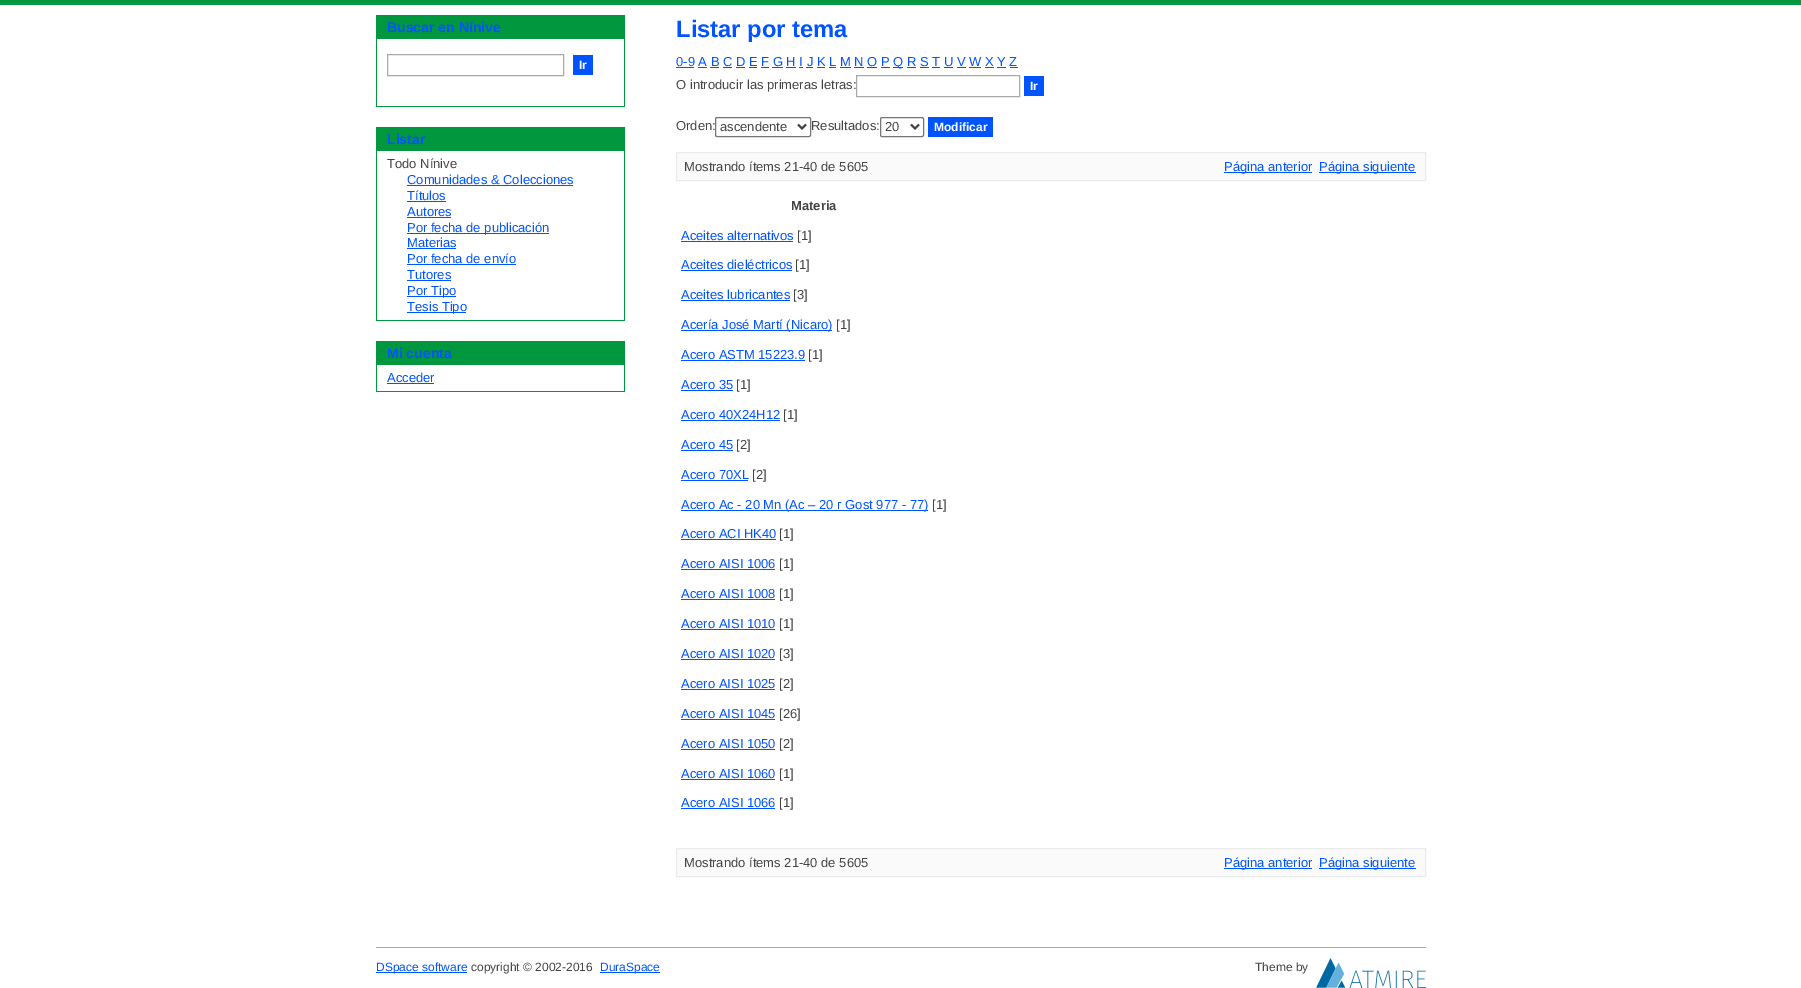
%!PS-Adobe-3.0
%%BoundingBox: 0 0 1801 988
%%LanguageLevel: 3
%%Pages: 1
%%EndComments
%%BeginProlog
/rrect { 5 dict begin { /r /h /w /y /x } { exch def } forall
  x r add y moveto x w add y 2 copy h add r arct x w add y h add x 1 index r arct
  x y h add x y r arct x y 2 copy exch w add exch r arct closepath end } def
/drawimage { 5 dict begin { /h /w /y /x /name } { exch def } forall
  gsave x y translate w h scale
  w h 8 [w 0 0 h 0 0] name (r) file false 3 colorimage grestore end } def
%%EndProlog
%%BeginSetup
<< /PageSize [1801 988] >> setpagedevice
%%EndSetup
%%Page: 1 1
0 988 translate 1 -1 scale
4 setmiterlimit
1 setgray
0 0 1801 988 rectfill
0 0.592 0.243 setrgbcolor
0 0 1801 5 rectfill
376 15 249 24 rectfill
624 39 1 68 rectfill
376 106 249 1 rectfill
376 39 1 68 rectfill
0.667 setgray
387.5 54.5 176 21 rectstroke
0 0.329 1 setrgbcolor
573 55 20 20 rectfill
0 0.592 0.243 setrgbcolor
376 127 249 24 rectfill
624 151 1 170 rectfill
376 320 249 1 rectfill
376 151 1 170 rectfill
0 0.329 1 setrgbcolor
407 185 166 1 rectfill
407 201 39 1 rectfill
407 217 44 1 rectfill
407 233 142 1 rectfill
407 248 49 1 rectfill
407 264 109 1 rectfill
407 280 44 1 rectfill
407 296 49 1 rectfill
407 312 59 1 rectfill
0 0.592 0.243 setrgbcolor
376 341 249 24 rectfill
624 365 1 27 rectfill
376 391 249 1 rectfill
376 365 1 27 rectfill
0 0.329 1 setrgbcolor
387 383 47 1 rectfill
676 67 18 1 rectfill
893 67 10 1 rectfill
698 67 9 1 rectfill
710 67 9 1 rectfill
723 67 9 1 rectfill
736 67 9 1 rectfill
749 67 8 1 rectfill
761 67 8 1 rectfill
772 67 11 1 rectfill
786 67 10 1 rectfill
799 67 4 1 rectfill
806 67 7 1 rectfill
817 67 8 1 rectfill
829 67 7 1 rectfill
840 67 11 1 rectfill
854 67 10 1 rectfill
867 67 10 1 rectfill
881 67 9 1 rectfill
907 67 9 1 rectfill
920 67 9 1 rectfill
932 67 8 1 rectfill
944 67 9 1 rectfill
957 67 9 1 rectfill
969 67 12 1 rectfill
985 67 9 1 rectfill
997 67 9 1 rectfill
1010 67 8 1 rectfill
0.667 setgray
856.5 75.5 163 21 rectstroke
0 0.329 1 setrgbcolor
1024 76 20 20 rectfill
0.463 setgray
715.5 117.5 95 19 1.5 rrect stroke
0.267 setgray
2 setlinewidth
newpath 798 124.5 moveto 802 128.5 lineto 806 124.5 lineto stroke
0.463 setgray
1 setlinewidth
880.5 117.5 43 19 1.5 rrect stroke
0.267 setgray
2 setlinewidth
newpath 911 124.5 moveto 915 128.5 lineto 919 124.5 lineto stroke
0 0.329 1 setrgbcolor
928 117 65 20 rectfill
0.98 setgray
newpath 676.5 152.5 moveto 1425.5 152.5 lineto 1425.5 180.5 lineto 676.5 180.5 lineto closepath gsave fill grestore
0.922 setgray
1 setlinewidth
stroke
0 0.329 1 setrgbcolor
1224 172 88 1 rectfill
1319 172 97 1 rectfill
681 241 112 1 rectfill
681 270 111 1 rectfill
681 300 109 1 rectfill
681 330 151 1 rectfill
681 360 124 1 rectfill
681 390 52 1 rectfill
681 420 99 1 rectfill
681 450 52 1 rectfill
681 480 67 1 rectfill
681 510 247 1 rectfill
681 539 95 1 rectfill
681 569 94 1 rectfill
681 599 94 1 rectfill
681 629 94 1 rectfill
681 659 94 1 rectfill
681 689 94 1 rectfill
681 719 94 1 rectfill
681 749 94 1 rectfill
681 779 94 1 rectfill
681 808 94 1 rectfill
0.98 setgray
newpath 676.5 848.5 moveto 1425.5 848.5 lineto 1425.5 876.5 lineto 676.5 876.5 lineto closepath gsave fill grestore
0.922 setgray
stroke
0 0.329 1 setrgbcolor
1224 868 88 1 rectfill
1319 868 97 1 rectfill
0.612 0.675 0.729 setrgbcolor
376 947 1050 1 rectfill
0 0.329 1 setrgbcolor
376 972 91 1 rectfill
600 972 60 1 rectfill
(images/1.raw) 1316 958 110 30 drawimage
/LiberationSans-Bold [14 0 0 -14 0 0] selectfont
387 32 moveto (Buscar en Nínive) show
/LiberationSans-Bold [12 0 0 -12 0 0] selectfont
1 setgray
579 69 moveto (Ir) show
/LiberationSans-Bold [14 0 0 -14 0 0] selectfont
0 0.329 1 setrgbcolor
387 144 moveto (Listar) show
/LiberationSans-Regular [13 0 0 -13 0 0] selectfont
0.267 setgray
387 168 moveto (Todo Nínive) show
0 0.329 1 setrgbcolor
407 184 moveto (Comunidades & Colecciones) show
407 200 moveto (Títulos) show
407 216 moveto (Autores) show
407 232 moveto (Por fecha de publicación) show
407 247 moveto (Materias) show
407 263 moveto (Por fecha de envío) show
407 279 moveto (Tutores) show
407 295 moveto (Por Tipo) show
407 311 moveto (Tesis Tipo) show
/LiberationSans-Bold [14 0 0 -14 0 0] selectfont
387 358 moveto (Mi cuenta) show
/LiberationSans-Regular [13 0 0 -13 0 0] selectfont
387 382 moveto (Acceder) show
/LiberationSans-Bold [23.75 0 0 -23.75 0 0] selectfont
676 37 moveto (Listar por tema) show
/LiberationSans-Regular [13 0 0 -13 0 0] selectfont
676 66 moveto (0-9 A B C D E F G H I J K L M N O P) show
893 66 moveto (Q R S T U V W X Y Z) show
0.267 setgray
676 89 moveto (O introducir las primeras letras:) show
/LiberationSans-Bold [12 0 0 -12 0 0] selectfont
1 setgray
1030 90 moveto (Ir) show
/LiberationSans-Regular [13 0 0 -13 0 0] selectfont
0.267 setgray
676 130 moveto (Orden:) show
720 131 moveto (ascendente) show
811 130 moveto (Resultados:) show
885 131 moveto (20) show
/LiberationSans-Bold [12 0 0 -12 0 0] selectfont
1 setgray
934 131 moveto (Modificar) show
/LiberationSans-Regular [13 0 0 -13 0 0] selectfont
0.267 setgray
684 171 moveto (Mostrando ítems 21-40 de 5605) show
0 0.329 1 setrgbcolor
1224 171 moveto (Página anterior) show
1319 171 moveto (Página siguiente) show
/LiberationSans-Bold [13 0 0 -13 0 0] selectfont
0.267 setgray
791 210 moveto (Materia) show
/LiberationSans-Regular [13 0 0 -13 0 0] selectfont
0 0.329 1 setrgbcolor
681 240 moveto (Aceites alternativos) show
0.267 setgray
797 240 moveto ([1]) show
0 0.329 1 setrgbcolor
681 269 moveto (Aceites dieléctricos) show
0.267 setgray
795 269 moveto ([1]) show
0 0.329 1 setrgbcolor
681 299 moveto (Aceites lubricantes) show
0.267 setgray
793 299 moveto ([3]) show
0 0.329 1 setrgbcolor
681 329 moveto (Acería José Martí \(Nicaro\)) show
0.267 setgray
836 329 moveto ([1]) show
0 0.329 1 setrgbcolor
681 359 moveto (Acero ASTM 15223.9) show
0.267 setgray
808 359 moveto ([1]) show
0 0.329 1 setrgbcolor
681 389 moveto (Acero 35) show
0.267 setgray
736 389 moveto ([1]) show
0 0.329 1 setrgbcolor
681 419 moveto (Acero 40X24H12) show
0.267 setgray
783 419 moveto ([1]) show
0 0.329 1 setrgbcolor
681 449 moveto (Acero 45) show
0.267 setgray
736 449 moveto ([2]) show
0 0.329 1 setrgbcolor
681 479 moveto (Acero 70XL) show
0.267 setgray
752 479 moveto ([2]) show
0 0.329 1 setrgbcolor
681 509 moveto (Acero Ac - 20 Mn \(Ac – 20 г Gost 977 - 77\)) show
0.267 setgray
932 509 moveto ([1]) show
0 0.329 1 setrgbcolor
681 538 moveto (Acero ACI HK40) show
0.267 setgray
779 538 moveto ([1]) show
0 0.329 1 setrgbcolor
681 568 moveto (Acero AISI 1006) show
0.267 setgray
779 568 moveto ([1]) show
0 0.329 1 setrgbcolor
681 598 moveto (Acero AISI 1008) show
0.267 setgray
779 598 moveto ([1]) show
0 0.329 1 setrgbcolor
681 628 moveto (Acero AISI 1010) show
0.267 setgray
779 628 moveto ([1]) show
0 0.329 1 setrgbcolor
681 658 moveto (Acero AISI 1020) show
0.267 setgray
779 658 moveto ([3]) show
0 0.329 1 setrgbcolor
681 688 moveto (Acero AISI 1025) show
0.267 setgray
779 688 moveto ([2]) show
0 0.329 1 setrgbcolor
681 718 moveto (Acero AISI 1045) show
0.267 setgray
779 718 moveto ([26]) show
0 0.329 1 setrgbcolor
681 748 moveto (Acero AISI 1050) show
0.267 setgray
779 748 moveto ([2]) show
0 0.329 1 setrgbcolor
681 778 moveto (Acero AISI 1060) show
0.267 setgray
779 778 moveto ([1]) show
0 0.329 1 setrgbcolor
681 807 moveto (Acero AISI 1066) show
0.267 setgray
779 807 moveto ([1]) show
684 867 moveto (Mostrando ítems 21-40 de 5605) show
0 0.329 1 setrgbcolor
1224 867 moveto (Página anterior) show
1319 867 moveto (Página siguiente) show
/LiberationSans-Regular [12 0 0 -12 0 0] selectfont
376 971 moveto (DSpace software) show
0.267 setgray
471 971 moveto (copyright © 2002-2016) show
0 0.329 1 setrgbcolor
600 971 moveto (DuraSpace) show
0.267 setgray
1255 971 moveto (Theme by) show
showpage
%%EOF
